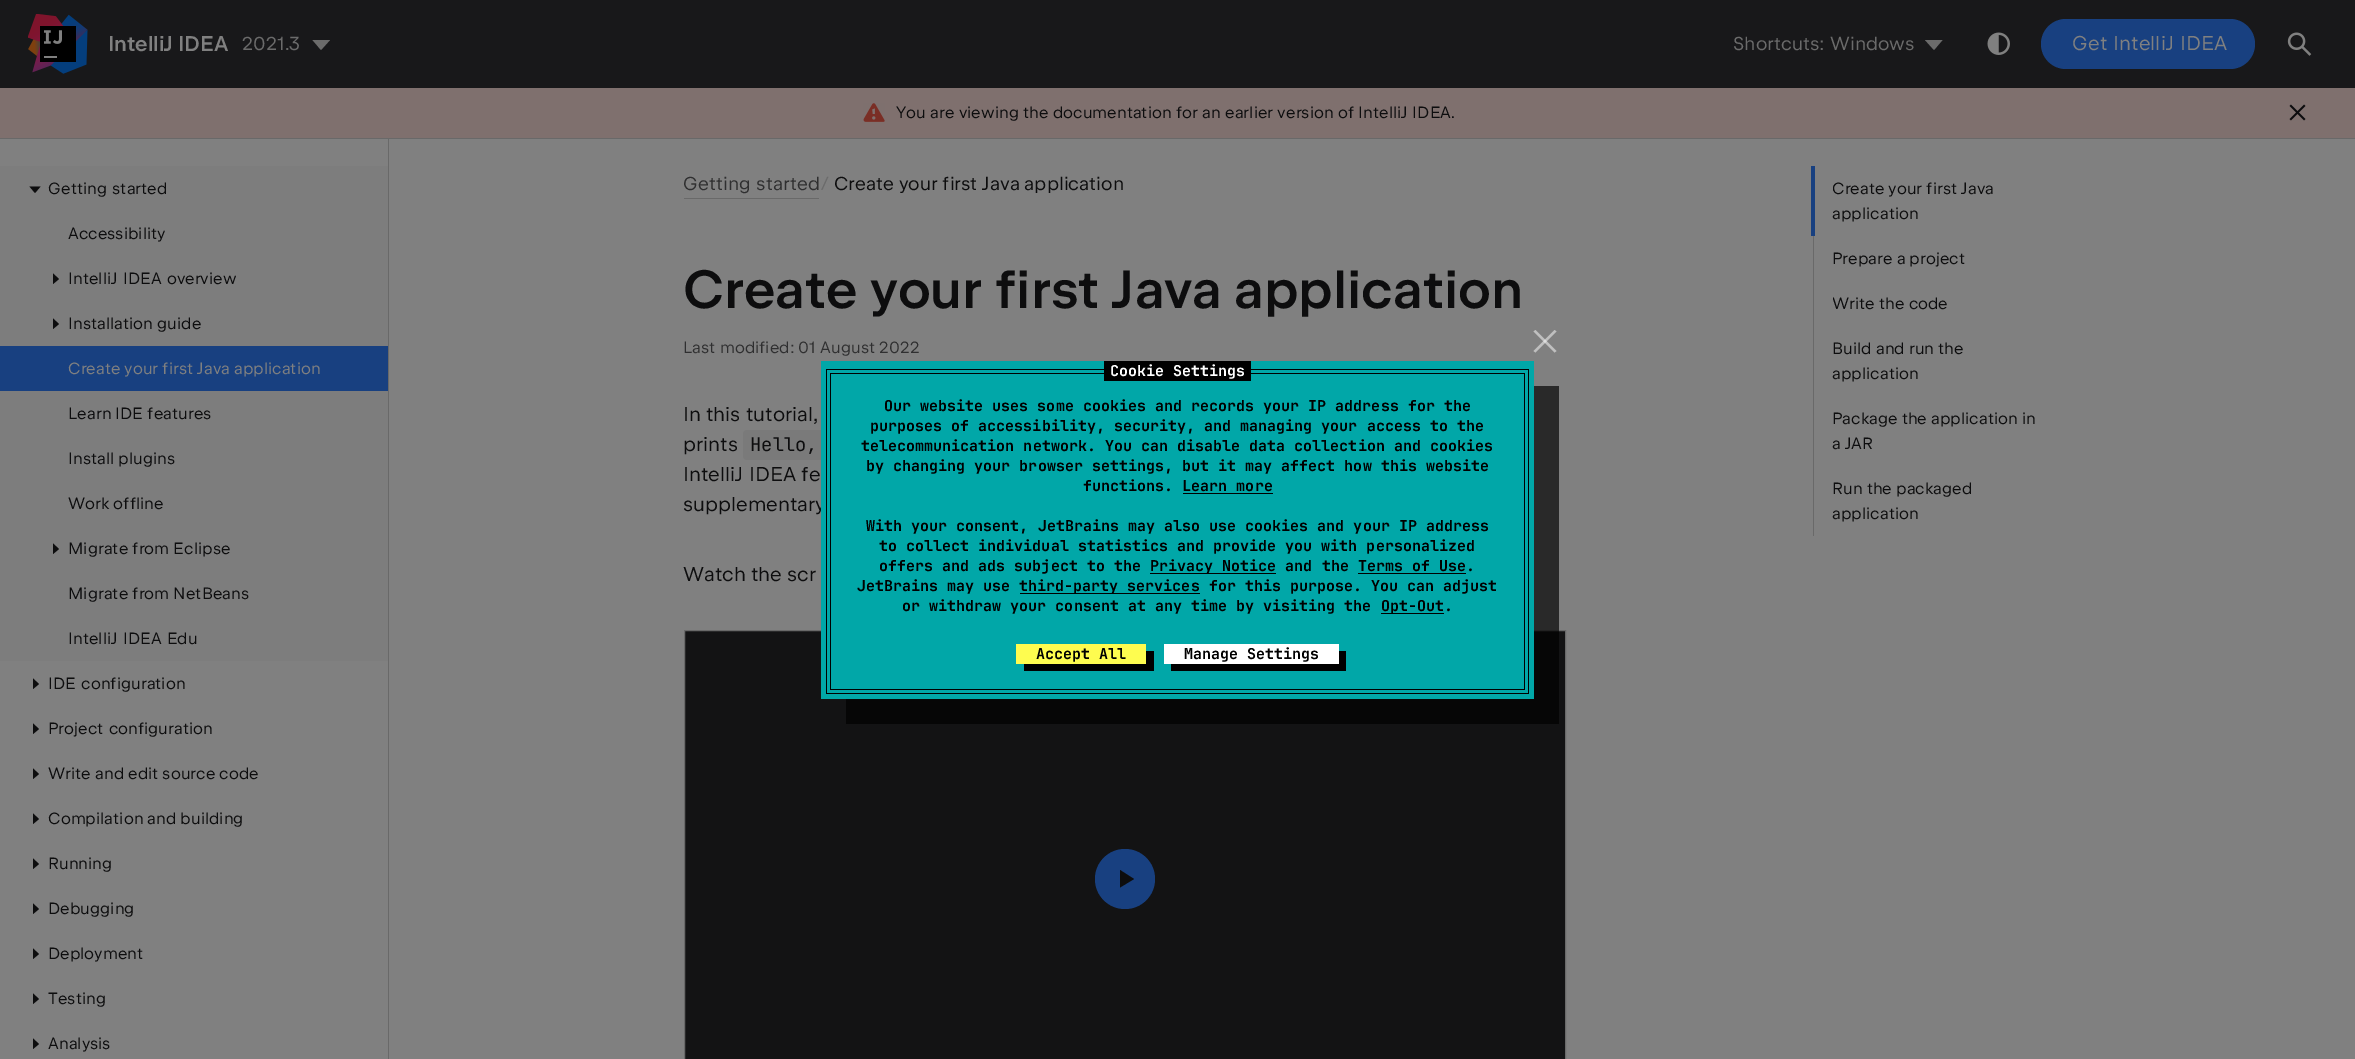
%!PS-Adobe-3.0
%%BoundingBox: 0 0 2355 1059
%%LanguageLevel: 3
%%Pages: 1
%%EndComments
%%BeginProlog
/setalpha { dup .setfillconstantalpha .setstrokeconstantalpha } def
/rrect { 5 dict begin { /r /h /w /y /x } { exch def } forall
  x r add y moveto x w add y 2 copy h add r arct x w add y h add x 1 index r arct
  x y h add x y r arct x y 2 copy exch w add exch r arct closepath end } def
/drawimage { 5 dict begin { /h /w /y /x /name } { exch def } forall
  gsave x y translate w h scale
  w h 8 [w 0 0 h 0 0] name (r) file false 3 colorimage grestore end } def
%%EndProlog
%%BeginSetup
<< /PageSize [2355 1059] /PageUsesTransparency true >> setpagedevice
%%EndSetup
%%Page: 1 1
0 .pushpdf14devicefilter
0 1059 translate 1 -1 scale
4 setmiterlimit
0.502 setgray
0 0 2355 1059 rectfill
0.094 0.094 0.102 setrgbcolor
0 0 2355 88 rectfill
(images/1.raw) 28 14 60 60 drawimage
0.42 setgray
newpath 321 50 moveto 312.5 40 lineto 330 40 lineto closepath fill
newpath 1934 50 moveto 1925 40 lineto 1942.5 40 lineto closepath fill
(images/2.raw) 1987 32 23 23 drawimage
0.094 0.251 0.502 setrgbcolor
2041 19 214 50 25 rrect fill
(images/3.raw) 2287 32 25 24 drawimage
0.498 0.439 0.431 setrgbcolor
0 88 2355 50 rectfill
0.412 setgray
0 138 2355 1 rectfill
(images/4.raw) 863 103 22 19 drawimage
(images/5.raw) 2289 104 17 17 drawimage
388 139 1 920 rectfill
0.49 setgray
0 166 388 180 rectfill
0.051 0.051 0.055 setrgbcolor
newpath 35 193 moveto 29.5 186.5 lineto 40.5 186.5 lineto closepath fill
newpath 59 279 moveto 53 284 lineto 53 273.5 lineto closepath fill
newpath 59 324 moveto 53 329 lineto 53 318.5 lineto closepath fill
0.094 0.251 0.502 setrgbcolor
0 346 388 45 rectfill
0.49 setgray
0 391 388 270 rectfill
0.051 0.051 0.055 setrgbcolor
newpath 59 549 moveto 53 554 lineto 53 543.5 lineto closepath fill
newpath 39 684 moveto 33 689 lineto 33 678.5 lineto closepath fill
newpath 39 729 moveto 33 734 lineto 33 723.5 lineto closepath fill
newpath 39 774 moveto 33 779 lineto 33 768.5 lineto closepath fill
newpath 39 819 moveto 33 824 lineto 33 813.5 lineto closepath fill
newpath 39 864 moveto 33 869 lineto 33 858.5 lineto closepath fill
newpath 39 909 moveto 33 914 lineto 33 903.5 lineto closepath fill
newpath 39 954 moveto 33 959 lineto 33 948.5 lineto closepath fill
newpath 39 999 moveto 33 1004 lineto 33 993.5 lineto closepath fill
newpath 39 1044 moveto 33 1049 lineto 33 1038.5 lineto closepath fill
0.412 setgray
684 198 135 1 rectfill
0.478 setgray
743 430 162 30 4 rrect fill
0.075 0.075 0.078 setrgbcolor
newpath 684.5 630.5 moveto 1565.5 630.5 lineto 1565.5 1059.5 lineto 684.5 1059.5 lineto closepath gsave fill grestore
0.412 setgray
stroke
0.094 0.251 0.502 setrgbcolor
newpath 1125 879 30 0 360 arc closepath fill
0.051 0.051 0.055 setrgbcolor
newpath 1120 870 moveto 1120 887.5 lineto 1134 879 lineto closepath fill
0.094 0.251 0.502 setrgbcolor
1811 166 4 70 rectfill
0.412 setgray
1813 236 1 300 rectfill
0.68 setalpha
0 setgray
newpath 846 699 moveto 846 724 lineto 1559 724 lineto 1559 386 lineto 1534 386 lineto 1534 699 lineto closepath fill
1 setalpha
0.749 setgray
newpath 1533.5 351 moveto 1554.5 330 lineto 1556.5 331.5 lineto 1535.5 352.5 lineto closepath fill
0.5 setalpha
1 setgray
newpath 1535.5 330 moveto 1556.5 351 lineto 1554.5 352.5 lineto 1533.5 331.5 lineto closepath fill
/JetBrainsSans-Medium [21.25 0 0 -21.25 0 0] selectfont
1 setalpha
0.502 setgray
108 51 moveto -0.1 0 (IntelliJ IDEA) ashow
/JetBrainsSans-Regular [18.75 0 0 -18.75 0 0] selectfont
0.42 setgray
242 50 moveto 0.03 0 (2021.3) ashow
1733 50 moveto 0.03 0 (Shortcuts:) ashow
1830 50 moveto 0.03 0 (Windows) ashow
/JetBrainsSans-Regular [20 0 0 -20 0 0] selectfont
0.502 setgray
2072 50 moveto 1 0 32 0.03 0 (Get IntelliJ IDEA) awidthshow
/JetBrainsSans-Regular [16.25 0 0 -16.25 0 0] selectfont
0.051 0.051 0.055 setrgbcolor
896 118 moveto 0.25 0 32 0.07 0 (You are viewing the documentation for an earlier version of IntelliJ IDEA.) awidthshow
48 194 moveto 1 0 32 0.07 0 (Getting started) awidthshow
68 239 moveto 0.07 0 (Accessibility) ashow
68 284 moveto 1 0 32 0.07 0 (IntelliJ IDEA overview) awidthshow
68 329 moveto 0.07 0 (Installation guide) ashow
0.502 setgray
68 374 moveto 0.07 0 (Create your first Java application) ashow
0.051 0.051 0.055 setrgbcolor
68 419 moveto 0.07 0 (Learn IDE features) ashow
68 464 moveto 0.07 0 (Install plugins) ashow
68 509 moveto 0.07 0 (Work offline) ashow
68 554 moveto 0.07 0 (Migrate from Eclipse) ashow
68 599 moveto 0.07 0 (Migrate from NetBeans) ashow
68 644 moveto 1 0 32 0.07 0 (IntelliJ IDEA Edu) awidthshow
48 689 moveto 1 0 32 0.07 0 (IDE configuration) awidthshow
48 734 moveto 1 0 32 0.07 0 (Project configuration) awidthshow
48 779 moveto 0.07 0 (Write and edit source code) ashow
48 824 moveto 0.07 0 (Compilation and building) ashow
48 869 moveto 0.07 0 (Running) ashow
48 914 moveto 0.07 0 (Debugging) ashow
48 959 moveto 0.07 0 (Deployment) ashow
48 1004 moveto 0.07 0 (Testing) ashow
48 1049 moveto 0.07 0 (Analysis) ashow
/JetBrainsSans-Regular [18.75 0 0 -18.75 0 0] selectfont
0.184 0.184 0.188 setrgbcolor
683 190 moveto 1 0 32 0.03 0 (Getting started) awidthshow
0.42 setgray
821 190 moveto 0.03 0 (/) ashow
0.051 0.051 0.055 setrgbcolor
834 190 moveto 0.03 0 (Create your first Java application) ashow
/JetBrainsSans-Medium [53.75 0 0 -53.75 0 0] selectfont
683 308 moveto 0.5 0 32 -0.05 0 (Create your first Java application) awidthshow
/JetBrainsSans-Regular [16.25 0 0 -16.25 0 0] selectfont
0.184 0.184 0.188 setrgbcolor
683 353 moveto 0.07 0 (Last modified: 01 August 2022) ashow
/JetBrainsSans-Regular [20 0 0 -20 0 0] selectfont
0.051 0.051 0.055 setrgbcolor
683 421 moveto 0.03 0 (In this tutorial,) ashow
683 451 moveto 0.03 0 (prints) ashow
/JetBrainsMono-Regular [18.75 0 0 -18.75 0 0] selectfont
750 451 moveto 0.03 0 (Hello,) ashow
/JetBrainsSans-Regular [20 0 0 -20 0 0] selectfont
683 481 moveto 0.03 0 (IntelliJ IDEA fe) ashow
683 511 moveto 0.03 0 (supplementary) ashow
683 581 moveto 0.03 0 (Watch the scr) ashow
gsave
1833 166 213 70 rectclip
/JetBrainsSans-Regular [16.25 0 0 -16.25 0 0] selectfont
1832 194 moveto 0.07 0 (Create your first Java) ashow
grestore
/JetBrainsSans-Regular [16.25 0 0 -16.25 0 0] selectfont
1832 219 moveto 0.07 0 (application) ashow
1832 264 moveto 0.07 0 (Prepare a project) ashow
gsave
1833 281 213 45 rectclip
1832 309 moveto 0.07 0 (Write the code) ashow
grestore
1832 354 moveto 0.07 0 (Build and run the) ashow
1832 379 moveto 0.07 0 (application) ashow
1832 424 moveto 0.07 0 (Package the application in) ashow
1832 449 moveto 0.07 0 (a JAR) ashow
1832 494 moveto 0.07 0 (Run the packaged) ashow
1832 519 moveto 0.07 0 (application) ashow
0.004 0.655 0.659 setrgbcolor
821 361 713 338 rectfill
0 setgray
830 373 695 1 rectfill
1524 373 1 317 rectfill
830 373 1 271 rectfill
826 369 703 1 rectfill
1104 361 147 20 rectfill
/JetBrainsMono-Bold [15 0 0 -15 0 0] selectfont
1 setgray
1110 376 moveto 0.03 0 (Cookie Settings) ashow
0 setgray
1528 369 1 325 rectfill
826 369 1 274 rectfill
884 411 moveto 0.03 0 (Our website uses some cookies and records your IP address for the) ashow
870 431 moveto 0.03 0 (purposes of accessibility, security, and managing your access to the) ashow
861 451 moveto 0.03 0 (telecommunication network. You can disable data collection and cookies) ashow
866 471 moveto 0.03 0 (by changing your browser settings, but it may affect how this website) ashow
1083 491 moveto 0.03 0 (functions. Learn more) ashow
1183 493 90 1 rectfill
866 531 moveto 0.03 0 (With your consent, JetBrains may also use cookies and your IP address) ashow
879 551 moveto 0.03 0 (to collect individual statistics and provide you with personalized) ashow
879 571 moveto 0.03 0 (offers and ads subject to the) ashow
1150 573 126 1 rectfill
1150 571 moveto 0.03 0 (Privacy Notice and the Terms of Use.) ashow
1358 573 108 1 rectfill
857 591 moveto 0.03 0 (JetBrains may use) ashow
1020 593 180 1 rectfill
1019 591 moveto 0.03 0 (third-party services for this purpose. You can adjust) ashow
902 611 moveto 0.03 0 (or withdraw your consent at any time by visiting the) ashow
1381 613 63 1 rectfill
1381 611 moveto 0.03 0 (Opt-Out.) ashow
830 689 695 1 rectfill
830 644 1 46 rectfill
826 693 703 1 rectfill
826 643 1 51 rectfill
newpath 1024 664 moveto 1024 671 lineto 1154 671 lineto 1154 651 lineto 1146 651 lineto 1146 664 lineto closepath fill
0.996 0.988 0.31 setrgbcolor
1016 644 130 20 rectfill
0 setgray
1036 659 moveto (Accept All) show
newpath 1171 664 moveto 1171 671 lineto 1346 671 lineto 1346 651 lineto 1339 651 lineto 1339 664 lineto closepath fill
1 setgray
1164 644 175 20 rectfill
0 setgray
1184 659 moveto (Manage Settings) show
.poppdf14devicefilter showpage
%%EOF
